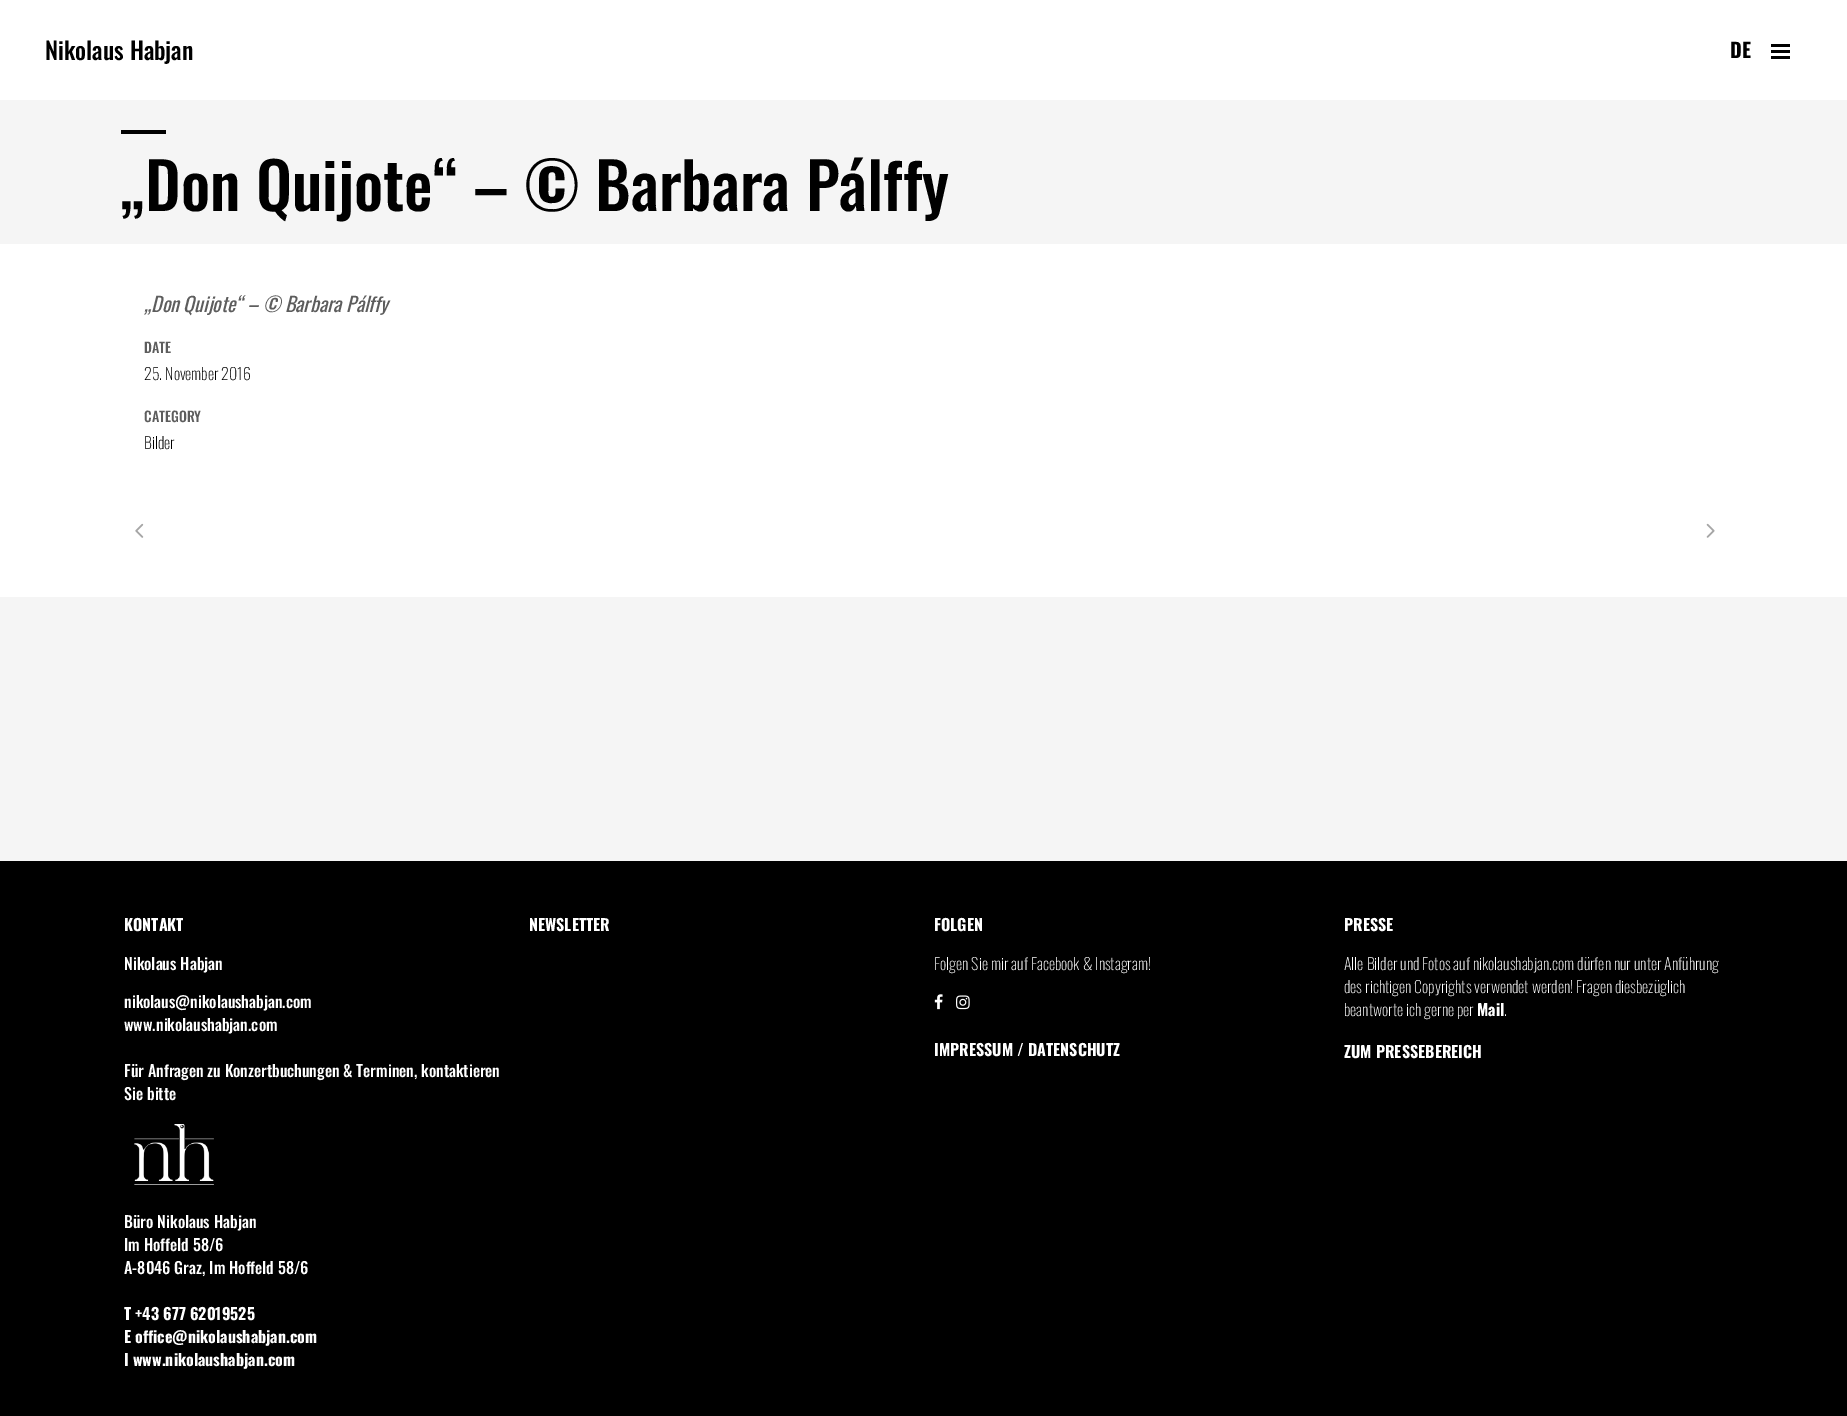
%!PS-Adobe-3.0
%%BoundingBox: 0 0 1847 1416
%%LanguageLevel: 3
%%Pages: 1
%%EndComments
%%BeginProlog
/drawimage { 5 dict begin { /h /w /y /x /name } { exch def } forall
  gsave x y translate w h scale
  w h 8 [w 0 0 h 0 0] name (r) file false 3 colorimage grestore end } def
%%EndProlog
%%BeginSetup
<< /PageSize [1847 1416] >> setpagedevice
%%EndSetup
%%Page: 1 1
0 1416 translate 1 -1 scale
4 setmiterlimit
1 setgray
0 0 1847 1416 rectfill
0 setgray
1771 50 19 3 rectfill
1771 44 19 3 rectfill
1771 56 19 3 rectfill
0.961 setgray
0 100 1847 761 rectfill
0 setgray
121 130 45 4 rectfill
1 setgray
0 244 1847 353 rectfill
(images/1.raw) 135 523 9 15 drawimage
(images/2.raw) 1706 523 9 15 drawimage
0 setgray
0 861 1847 555 rectfill
(images/3.raw) 134 1124 80 61 drawimage
(images/4.raw) 934 994 9 16 drawimage
(images/5.raw) 956 995 14 15 drawimage
/Oswald-Medium [24 0 0 -24 0 0] selectfont
45 60 moveto (Nikolaus Habjan) show
/Oswald-Bold [20 0 0 -20 0 0] selectfont
1730 58 moveto (DE) show
/Oswald-Medium [64 0 0 -64 0 0] selectfont
121 211 moveto („Don Quijote“ – © Barbara Pálffy) show
/Oswald-Italic [20 0 0 -20 0 0] selectfont
0.365 setgray
144 312 moveto („Don Quijote“ – © Barbara Pálffy) show
/Oswald-Medium [14 0 0 -14 0 0] selectfont
144 353 moveto (DATE) show
/Oswald-ExtraLight [16 0 0 -16 0 0] selectfont
0 setgray
144 380 moveto (25. November 2016) show
/Oswald-Medium [14 0 0 -14 0 0] selectfont
0.365 setgray
144 422 moveto (CATEGORY) show
/Oswald-ExtraLight [16 0 0 -16 0 0] selectfont
0 setgray
144 449 moveto (Bilder) show
/Oswald-Bold [16 0 0 -16 0 0] selectfont
1 setgray
124 931 moveto (KONTAKT) show
/Oswald-Medium [16 0 0 -16 0 0] selectfont
124 970 moveto (Nikolaus Habjan) show
124 1008 moveto (nikolaus@nikolaushabjan.com) show
124 1031 moveto (www.nikolaushabjan.com) show
124 1077 moveto (Für Anfragen zu Konzertbuchungen & Terminen, kontaktieren) show
124 1100 moveto (Sie bitte) show
124 1228 moveto (Büro Nikolaus Habjan) show
124 1251 moveto (Im Hoffeld 58/6) show
124 1274 moveto (A-8046 Graz, Im Hoffeld 58/6) show
/Oswald-Bold [16 0 0 -16 0 0] selectfont
124 1320 moveto (T +43 677 62019525) show
124 1343 moveto (E office@nikolaushabjan.com) show
124 1366 moveto (I www.nikolaushabjan.com) show
529 931 moveto (NEWSLETTER) show
934 931 moveto (FOLGEN) show
/Oswald-ExtraLight [16 0 0 -16 0 0] selectfont
934 970 moveto (Folgen Sie mir auf Facebook & Instagram!) show
/Oswald-Bold [16 0 0 -16 0 0] selectfont
934 1056 moveto (IMPRESSUM / DATENSCHUTZ) show
1344 931 moveto (PRESSE) show
/Oswald-ExtraLight [16 0 0 -16 0 0] selectfont
1344 970 moveto (Alle Bilder und Fotos auf nikolaushabjan.com dürfen nur unter Anführung) show
1344 993 moveto (des richtigen Copyrights verwendet werden! Fragen diesbezüglich) show
1344 1016 moveto (beantworte ich gerne per) show
/Oswald-Bold [16 0 0 -16 0 0] selectfont
1477 1016 moveto (Mail) show
/Oswald-ExtraLight [16 0 0 -16 0 0] selectfont
1504 1016 moveto (.) show
/Oswald-Bold [16 0 0 -16 0 0] selectfont
1344 1058 moveto (ZUM PRESSEBEREICH) show
showpage
%%EOF
